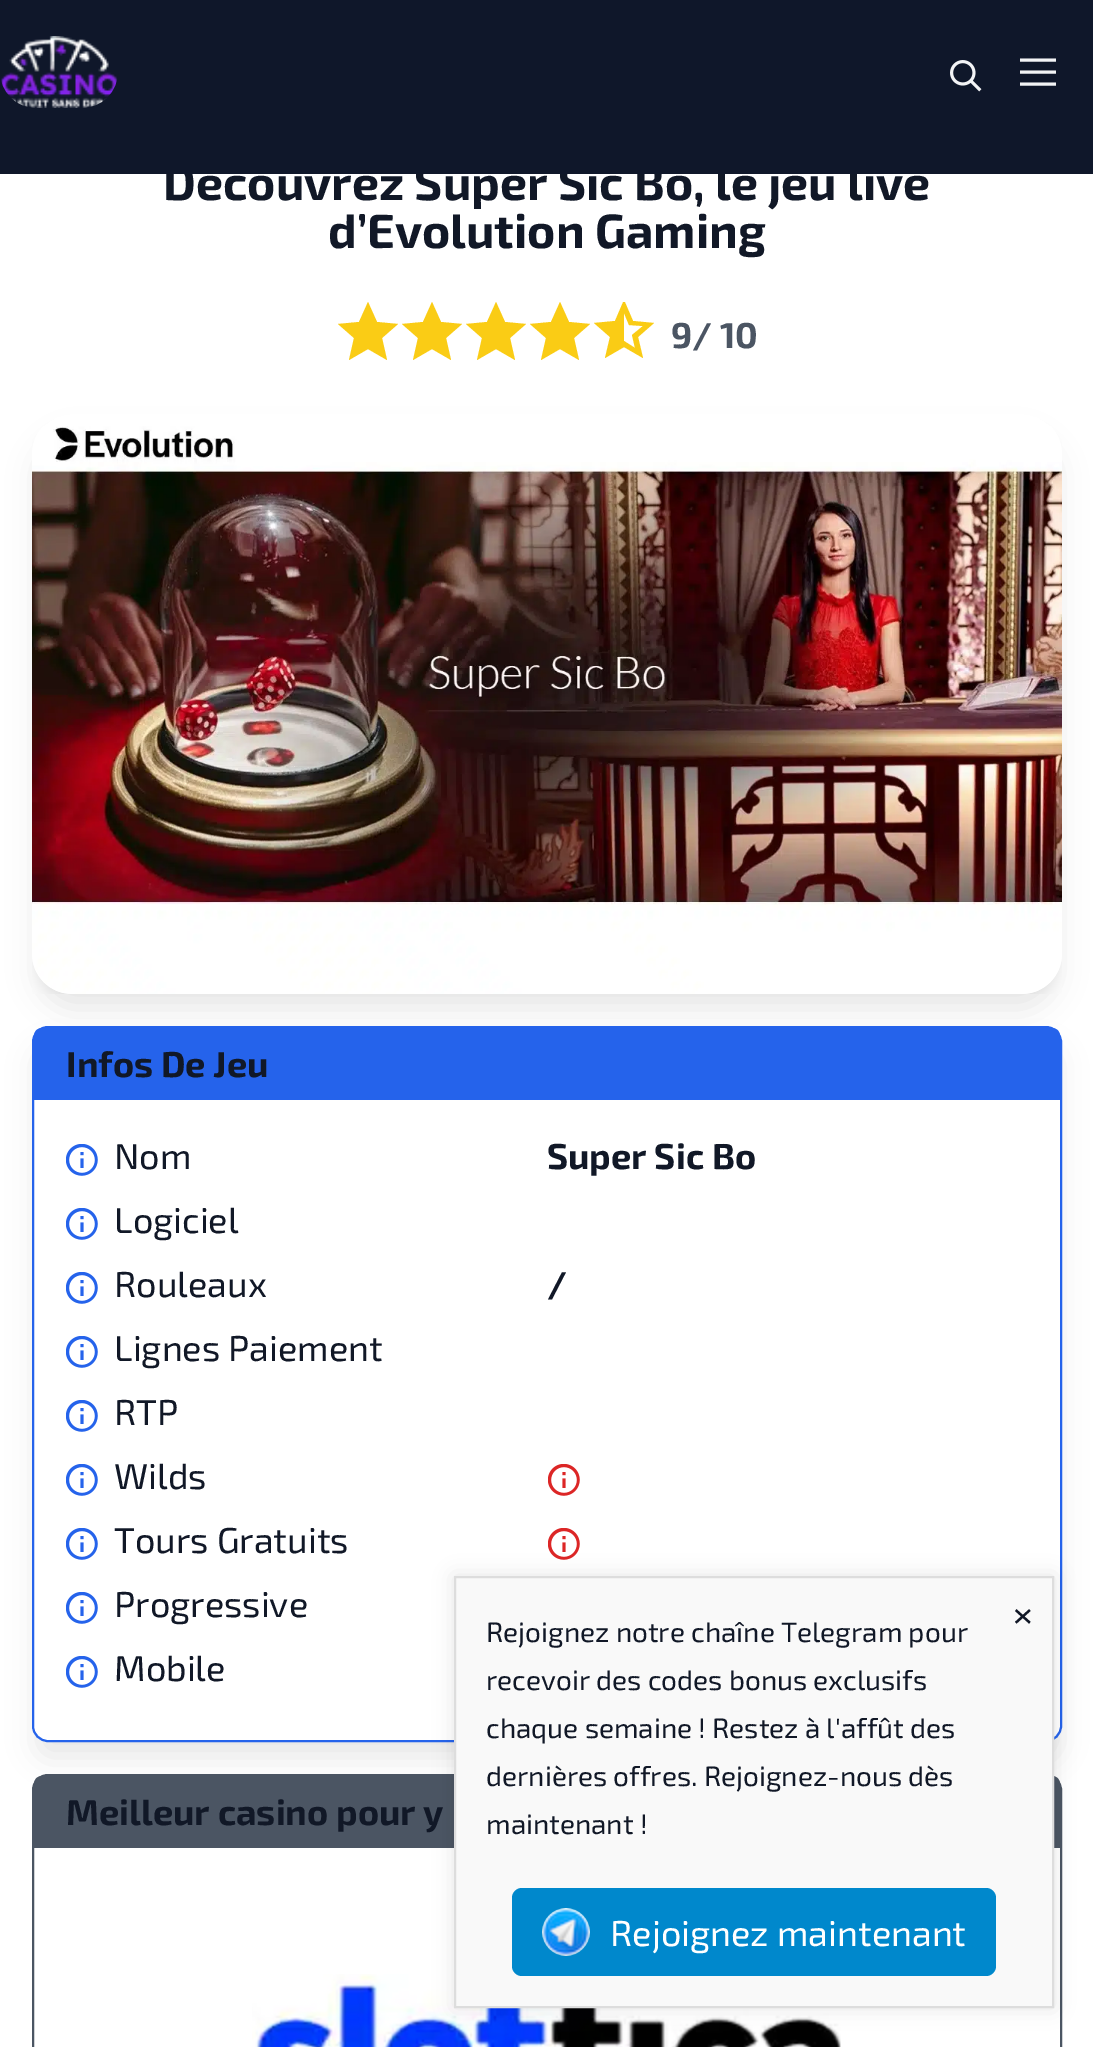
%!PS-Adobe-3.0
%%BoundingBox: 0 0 1093 2047
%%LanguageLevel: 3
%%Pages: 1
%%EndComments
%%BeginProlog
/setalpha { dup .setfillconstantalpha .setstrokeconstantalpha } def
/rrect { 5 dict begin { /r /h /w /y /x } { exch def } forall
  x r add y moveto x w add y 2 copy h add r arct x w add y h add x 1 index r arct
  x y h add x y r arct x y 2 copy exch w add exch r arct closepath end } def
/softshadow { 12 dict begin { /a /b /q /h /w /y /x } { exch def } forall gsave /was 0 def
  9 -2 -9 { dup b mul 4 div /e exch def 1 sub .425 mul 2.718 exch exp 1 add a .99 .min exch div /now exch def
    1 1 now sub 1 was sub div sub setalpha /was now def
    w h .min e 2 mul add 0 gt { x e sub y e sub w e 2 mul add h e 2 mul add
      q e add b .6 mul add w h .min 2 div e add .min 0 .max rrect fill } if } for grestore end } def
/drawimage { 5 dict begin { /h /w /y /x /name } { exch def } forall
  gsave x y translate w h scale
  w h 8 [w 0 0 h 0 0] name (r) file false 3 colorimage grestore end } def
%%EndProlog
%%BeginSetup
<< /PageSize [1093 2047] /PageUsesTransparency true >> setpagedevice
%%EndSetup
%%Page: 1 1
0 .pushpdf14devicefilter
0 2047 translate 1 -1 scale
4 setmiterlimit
1 setgray
0 0 1093 2047 rectfill
0.98 0.8 0.082 setrgbcolor
newpath 368 349 moveto 387 360 lineto 382 338 lineto 398 324 lineto 377 322 lineto 368 302 lineto 359 322 lineto 338 324 lineto 354 338 lineto 349 360 lineto closepath fill
newpath 432 349 moveto 451 360 lineto 446 338 lineto 462 324 lineto 441 322 lineto 432 302 lineto 423 322 lineto 402 324 lineto 418 338 lineto 413 360 lineto closepath fill
newpath 496 349 moveto 515 360 lineto 510 338 lineto 526 324 lineto 505 322 lineto 496 302 lineto 487 322 lineto 466 324 lineto 482 338 lineto 477 360 lineto closepath fill
newpath 560 349 moveto 579 360 lineto 574 338 lineto 590 324 lineto 569 322 lineto 560 302 lineto 551 322 lineto 530 324 lineto 546 338 lineto 541 360 lineto closepath fill
gsave
592 302 64 64 rectclip
newpath 654 323 moveto 633 321 lineto 624 300 lineto 615 321 lineto 594 323 lineto 610 337 lineto 605 358 lineto 624 347 lineto 643 358 lineto 638 337 lineto closepath 624 341 moveto 624 313 lineto 629 325 lineto 643 326 lineto 632 335 lineto 635 348 lineto closepath fill
grestore
gsave
newpath 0 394 moveto 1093 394 lineto 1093 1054 lineto 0 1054 lineto closepath 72 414 moveto 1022 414 lineto 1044 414 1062 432 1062 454 curveto 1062 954 lineto 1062 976 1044 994 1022 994 curveto 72 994 lineto 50 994 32 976 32 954 curveto 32 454 lineto 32 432 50 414 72 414 curveto closepath eoclip newpath
0 setgray
38 440 1018 568 34 15 0.1 softshadow
grestore
(images/3.raw) 32 426 1030 568 drawimage
gsave
newpath 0 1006 moveto 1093 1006 lineto 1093 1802 lineto 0 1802 lineto closepath 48 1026 moveto 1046 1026 lineto 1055 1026 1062 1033 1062 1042 curveto 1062 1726 lineto 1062 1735 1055 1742 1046 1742 curveto 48 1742 lineto 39 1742 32 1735 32 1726 curveto 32 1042 lineto 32 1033 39 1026 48 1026 curveto closepath eoclip newpath
0 setgray
38 1052 1018 704 10 15 0.1 softshadow
grestore
0.145 0.388 0.922 setrgbcolor
2 setlinewidth
33 1027 1028 714 15 rrect stroke
newpath 42 1028 moveto 1052 1028 lineto 1056.5 1028 1060 1031.5 1060 1036 curveto 1060 1100 lineto 34 1100 lineto 34 1036 lineto 34 1031.5 37.5 1028 42 1028 curveto closepath fill
(images/4.raw) 66 1144 32 32 drawimage
(images/4.raw) 66 1208 32 32 drawimage
(images/4.raw) 66 1272 32 32 drawimage
(images/4.raw) 66 1336 32 32 drawimage
(images/4.raw) 66 1400 32 32 drawimage
(images/4.raw) 66 1464 32 32 drawimage
(images/5.raw) 548 1464 32 32 drawimage
(images/4.raw) 66 1528 32 32 drawimage
(images/5.raw) 548 1528 32 32 drawimage
(images/4.raw) 66 1592 32 32 drawimage
(images/4.raw) 66 1656 32 32 drawimage
0.294 0.333 0.388 setrgbcolor
33 1775 1028 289 15 rrect stroke
newpath 42 1776 moveto 1052 1776 lineto 1056.5 1776 1060 1779.5 1060 1784 curveto 1060 1848 lineto 34 1848 lineto 34 1784 lineto 34 1779.5 37.5 1776 42 1776 curveto closepath fill
(images/6.raw) 252 1974 589 73 drawimage
0 setgray
454 1576 600 432 0 10 0.1 softshadow
0.976 setgray
newpath 455 1577 moveto 1053 1577 lineto 1053 2007 lineto 455 2007 lineto closepath gsave fill grestore
0.867 setgray
stroke
0 0.533 0.8 setrgbcolor
512 1888 484 88 10 rrect fill
(images/7.raw) 542 1908 48 48 drawimage
/Exo2-Bold [48 0 0 -48 0 0] selectfont
0.067 0.094 0.153 setrgbcolor
163 200 moveto (Découvrez Super Sic Bo, le jeu live) show
0.059 0.09 0.165 setrgbcolor
0 0 1093 174 rectfill
(images/1.raw) 1 36 117 72 drawimage
0.953 0.957 0.965 setrgbcolor
3 setlinewidth
newpath 1020 60 moveto 1056 60 lineto 1020 72 moveto 1056 72 lineto 1020 84 moveto 1056 84 lineto stroke
(images/2.raw) 950 60 32 32 drawimage
0.067 0.094 0.153 setrgbcolor
328 248 moveto (d’Evolution Gaming) show
/Exo2-Bold [36 0 0 -36 0 0] selectfont
0.294 0.333 0.388 setrgbcolor
671 348 moveto (9/ 10) show
0.067 0.094 0.153 setrgbcolor
66 1077 moveto (Infos De Jeu) show
/Exo2-Regular [36 0 0 -36 0 0] selectfont
114 1169 moveto (Nom) show
/Exo2-Bold [36 0 0 -36 0 0] selectfont
547 1169 moveto (Super Sic Bo) show
/Exo2-Regular [36 0 0 -36 0 0] selectfont
114 1233 moveto (Logiciel) show
114 1297 moveto (Rouleaux) show
/Exo2-Bold [36 0 0 -36 0 0] selectfont
547 1297 moveto (/) show
/Exo2-Regular [36 0 0 -36 0 0] selectfont
114 1361 moveto (Lignes Paiement) show
114 1425 moveto (RTP) show
114 1489 moveto (Wilds) show
114 1553 moveto (Tours Gratuits) show
114 1617 moveto (Progressive) show
114 1681 moveto (Mobile) show
/Exo2-Bold [36 0 0 -36 0 0] selectfont
66 1825 moveto (Meilleur casino pour y) show
/Exo2-Regular [40 0 0 -40 0 0] selectfont
1013 1628 moveto (×) show
/Exo2-Regular [28 0 0 -28 0 0] selectfont
486 1642 moveto (Rejoignez notre chaîne Telegram pour) show
486 1690 moveto (recevoir des codes bonus exclusifs) show
486 1738 moveto (chaque semaine ! Restez à l'affût des) show
486 1786 moveto (dernières offres. Rejoignez-nous dès) show
486 1834 moveto (maintenant !) show
/Exo2-Regular [36 0 0 -36 0 0] selectfont
1 setgray
610 1946 moveto (Rejoignez maintenant) show
.poppdf14devicefilter showpage
%%EOF
